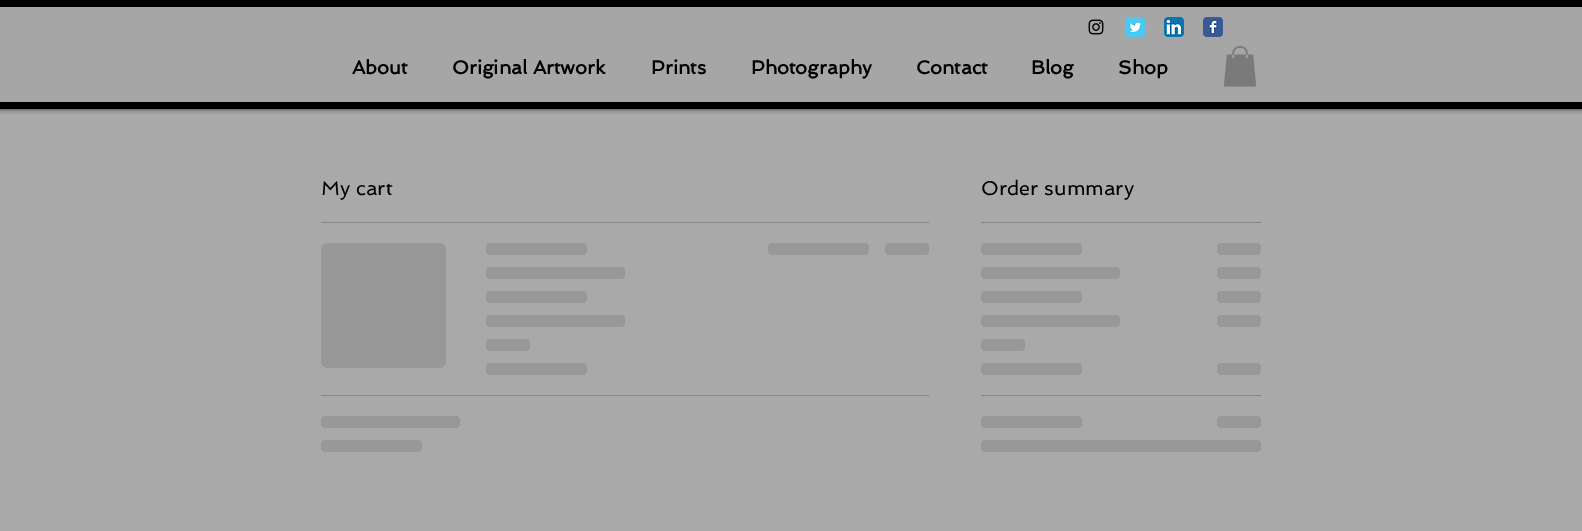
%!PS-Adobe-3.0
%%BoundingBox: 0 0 1582 531
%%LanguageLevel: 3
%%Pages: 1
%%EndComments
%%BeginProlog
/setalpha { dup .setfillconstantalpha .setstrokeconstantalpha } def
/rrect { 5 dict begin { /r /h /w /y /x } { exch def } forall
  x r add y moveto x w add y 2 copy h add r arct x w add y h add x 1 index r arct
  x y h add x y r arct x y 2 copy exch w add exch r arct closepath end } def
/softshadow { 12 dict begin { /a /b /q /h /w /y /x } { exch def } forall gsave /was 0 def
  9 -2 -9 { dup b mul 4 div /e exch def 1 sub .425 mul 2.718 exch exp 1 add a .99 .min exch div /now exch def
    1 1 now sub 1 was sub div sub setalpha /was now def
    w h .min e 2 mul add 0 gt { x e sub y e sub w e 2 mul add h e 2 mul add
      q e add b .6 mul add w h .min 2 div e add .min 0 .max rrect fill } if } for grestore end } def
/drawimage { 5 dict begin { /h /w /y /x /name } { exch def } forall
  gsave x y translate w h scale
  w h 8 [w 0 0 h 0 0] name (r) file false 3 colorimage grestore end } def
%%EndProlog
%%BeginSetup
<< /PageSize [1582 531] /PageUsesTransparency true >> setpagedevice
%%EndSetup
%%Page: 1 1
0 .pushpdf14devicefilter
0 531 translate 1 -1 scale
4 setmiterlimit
0.663 setgray
0 0 1582 531 rectfill
0 setgray
0 0 1582 109 0 2.5 0.7 softshadow
0.651 setgray
0 7 1582 95 rectfill
0 setgray
0 0 1582 7 rectfill
0 102 1582 7 rectfill
(images/1.raw) 1088 19 16 16 drawimage
(images/2.raw) 1125 17 20 20 drawimage
(images/3.raw) 1164 17 20 20 drawimage
(images/4.raw) 1203 17 20 20 drawimage
(images/5.raw) 1223 46 34 41 drawimage
0.529 setgray
321 222 608 1 rectfill
gsave 321 243 125 125 8 rrect clip newpath
<< /ShadingType 2 /ColorSpace /DeviceRGB /Coords [321 306 821 306] /Extend [true true] /Function << /FunctionType 3 /Domain [0 1] /Functions [<< /FunctionType 2 /Domain [0 1] /C0 [0.596 0.596 0.596] /C1 [0.596 0.596 0.596] /N 1 >> << /FunctionType 2 /Domain [0 1] /C0 [0.596 0.596 0.596] /C1 [0.529 0.529 0.529] /N 1 >> << /FunctionType 2 /Domain [0 1] /C0 [0.529 0.529 0.529] /C1 [0.596 0.596 0.596] /N 1 >> << /FunctionType 2 /Domain [0 1] /C0 [0.596 0.596 0.596] /C1 [0.596 0.596 0.596] /N 1 >>] /Bounds [0.25 0.37 0.63] /Encode [0 1 0 1 0 1 0 1] >> >> shfill grestore
gsave 486 243 101 12 6 rrect clip newpath
<< /ShadingType 2 /ColorSpace /DeviceRGB /Coords [486 249 890 249] /Extend [true true] /Function << /FunctionType 3 /Domain [0 1] /Functions [<< /FunctionType 2 /Domain [0 1] /C0 [0.596 0.596 0.596] /C1 [0.596 0.596 0.596] /N 1 >> << /FunctionType 2 /Domain [0 1] /C0 [0.596 0.596 0.596] /C1 [0.529 0.529 0.529] /N 1 >> << /FunctionType 2 /Domain [0 1] /C0 [0.529 0.529 0.529] /C1 [0.596 0.596 0.596] /N 1 >> << /FunctionType 2 /Domain [0 1] /C0 [0.596 0.596 0.596] /C1 [0.596 0.596 0.596] /N 1 >>] /Bounds [0.25 0.37 0.63] /Encode [0 1 0 1 0 1 0 1] >> >> shfill grestore
gsave 486 267 139 12 6 rrect clip newpath
<< /ShadingType 2 /ColorSpace /DeviceRGB /Coords [486 273 1042 273] /Extend [true true] /Function << /FunctionType 3 /Domain [0 1] /Functions [<< /FunctionType 2 /Domain [0 1] /C0 [0.596 0.596 0.596] /C1 [0.596 0.596 0.596] /N 1 >> << /FunctionType 2 /Domain [0 1] /C0 [0.596 0.596 0.596] /C1 [0.529 0.529 0.529] /N 1 >> << /FunctionType 2 /Domain [0 1] /C0 [0.529 0.529 0.529] /C1 [0.596 0.596 0.596] /N 1 >> << /FunctionType 2 /Domain [0 1] /C0 [0.596 0.596 0.596] /C1 [0.596 0.596 0.596] /N 1 >>] /Bounds [0.25 0.37 0.63] /Encode [0 1 0 1 0 1 0 1] >> >> shfill grestore
gsave 486 291 101 12 6 rrect clip newpath
<< /ShadingType 2 /ColorSpace /DeviceRGB /Coords [486 297 890 297] /Extend [true true] /Function << /FunctionType 3 /Domain [0 1] /Functions [<< /FunctionType 2 /Domain [0 1] /C0 [0.596 0.596 0.596] /C1 [0.596 0.596 0.596] /N 1 >> << /FunctionType 2 /Domain [0 1] /C0 [0.596 0.596 0.596] /C1 [0.529 0.529 0.529] /N 1 >> << /FunctionType 2 /Domain [0 1] /C0 [0.529 0.529 0.529] /C1 [0.596 0.596 0.596] /N 1 >> << /FunctionType 2 /Domain [0 1] /C0 [0.596 0.596 0.596] /C1 [0.596 0.596 0.596] /N 1 >>] /Bounds [0.25 0.37 0.63] /Encode [0 1 0 1 0 1 0 1] >> >> shfill grestore
gsave 486 315 139 12 6 rrect clip newpath
<< /ShadingType 2 /ColorSpace /DeviceRGB /Coords [486 321 1042 321] /Extend [true true] /Function << /FunctionType 3 /Domain [0 1] /Functions [<< /FunctionType 2 /Domain [0 1] /C0 [0.596 0.596 0.596] /C1 [0.596 0.596 0.596] /N 1 >> << /FunctionType 2 /Domain [0 1] /C0 [0.596 0.596 0.596] /C1 [0.529 0.529 0.529] /N 1 >> << /FunctionType 2 /Domain [0 1] /C0 [0.529 0.529 0.529] /C1 [0.596 0.596 0.596] /N 1 >> << /FunctionType 2 /Domain [0 1] /C0 [0.596 0.596 0.596] /C1 [0.596 0.596 0.596] /N 1 >>] /Bounds [0.25 0.37 0.63] /Encode [0 1 0 1 0 1 0 1] >> >> shfill grestore
gsave 486 339 44 12 6 rrect clip newpath
<< /ShadingType 2 /ColorSpace /DeviceRGB /Coords [486 345 662 345] /Extend [true true] /Function << /FunctionType 3 /Domain [0 1] /Functions [<< /FunctionType 2 /Domain [0 1] /C0 [0.596 0.596 0.596] /C1 [0.596 0.596 0.596] /N 1 >> << /FunctionType 2 /Domain [0 1] /C0 [0.596 0.596 0.596] /C1 [0.529 0.529 0.529] /N 1 >> << /FunctionType 2 /Domain [0 1] /C0 [0.529 0.529 0.529] /C1 [0.596 0.596 0.596] /N 1 >> << /FunctionType 2 /Domain [0 1] /C0 [0.596 0.596 0.596] /C1 [0.596 0.596 0.596] /N 1 >>] /Bounds [0.25 0.37 0.63] /Encode [0 1 0 1 0 1 0 1] >> >> shfill grestore
gsave 486 363 101 12 6 rrect clip newpath
<< /ShadingType 2 /ColorSpace /DeviceRGB /Coords [486 369 890 369] /Extend [true true] /Function << /FunctionType 3 /Domain [0 1] /Functions [<< /FunctionType 2 /Domain [0 1] /C0 [0.596 0.596 0.596] /C1 [0.596 0.596 0.596] /N 1 >> << /FunctionType 2 /Domain [0 1] /C0 [0.596 0.596 0.596] /C1 [0.529 0.529 0.529] /N 1 >> << /FunctionType 2 /Domain [0 1] /C0 [0.529 0.529 0.529] /C1 [0.596 0.596 0.596] /N 1 >> << /FunctionType 2 /Domain [0 1] /C0 [0.596 0.596 0.596] /C1 [0.596 0.596 0.596] /N 1 >>] /Bounds [0.25 0.37 0.63] /Encode [0 1 0 1 0 1 0 1] >> >> shfill grestore
gsave 768 243 101 12 6 rrect clip newpath
<< /ShadingType 2 /ColorSpace /DeviceRGB /Coords [768 249 1172 249] /Extend [true true] /Function << /FunctionType 3 /Domain [0 1] /Functions [<< /FunctionType 2 /Domain [0 1] /C0 [0.596 0.596 0.596] /C1 [0.596 0.596 0.596] /N 1 >> << /FunctionType 2 /Domain [0 1] /C0 [0.596 0.596 0.596] /C1 [0.529 0.529 0.529] /N 1 >> << /FunctionType 2 /Domain [0 1] /C0 [0.529 0.529 0.529] /C1 [0.596 0.596 0.596] /N 1 >> << /FunctionType 2 /Domain [0 1] /C0 [0.596 0.596 0.596] /C1 [0.596 0.596 0.596] /N 1 >>] /Bounds [0.25 0.37 0.63] /Encode [0 1 0 1 0 1 0 1] >> >> shfill grestore
gsave 885 243 44 12 6 rrect clip newpath
<< /ShadingType 2 /ColorSpace /DeviceRGB /Coords [885 249 1061 249] /Extend [true true] /Function << /FunctionType 3 /Domain [0 1] /Functions [<< /FunctionType 2 /Domain [0 1] /C0 [0.596 0.596 0.596] /C1 [0.596 0.596 0.596] /N 1 >> << /FunctionType 2 /Domain [0 1] /C0 [0.596 0.596 0.596] /C1 [0.529 0.529 0.529] /N 1 >> << /FunctionType 2 /Domain [0 1] /C0 [0.529 0.529 0.529] /C1 [0.596 0.596 0.596] /N 1 >> << /FunctionType 2 /Domain [0 1] /C0 [0.596 0.596 0.596] /C1 [0.596 0.596 0.596] /N 1 >>] /Bounds [0.25 0.37 0.63] /Encode [0 1 0 1 0 1 0 1] >> >> shfill grestore
321 395 608 1 rectfill
gsave 321 416 139 12 6 rrect clip newpath
<< /ShadingType 2 /ColorSpace /DeviceRGB /Coords [321 422 877 422] /Extend [true true] /Function << /FunctionType 3 /Domain [0 1] /Functions [<< /FunctionType 2 /Domain [0 1] /C0 [0.596 0.596 0.596] /C1 [0.596 0.596 0.596] /N 1 >> << /FunctionType 2 /Domain [0 1] /C0 [0.596 0.596 0.596] /C1 [0.529 0.529 0.529] /N 1 >> << /FunctionType 2 /Domain [0 1] /C0 [0.529 0.529 0.529] /C1 [0.596 0.596 0.596] /N 1 >> << /FunctionType 2 /Domain [0 1] /C0 [0.596 0.596 0.596] /C1 [0.596 0.596 0.596] /N 1 >>] /Bounds [0.25 0.37 0.63] /Encode [0 1 0 1 0 1 0 1] >> >> shfill grestore
gsave 321 440 101 12 6 rrect clip newpath
<< /ShadingType 2 /ColorSpace /DeviceRGB /Coords [321 446 725 446] /Extend [true true] /Function << /FunctionType 3 /Domain [0 1] /Functions [<< /FunctionType 2 /Domain [0 1] /C0 [0.596 0.596 0.596] /C1 [0.596 0.596 0.596] /N 1 >> << /FunctionType 2 /Domain [0 1] /C0 [0.596 0.596 0.596] /C1 [0.529 0.529 0.529] /N 1 >> << /FunctionType 2 /Domain [0 1] /C0 [0.529 0.529 0.529] /C1 [0.596 0.596 0.596] /N 1 >> << /FunctionType 2 /Domain [0 1] /C0 [0.596 0.596 0.596] /C1 [0.596 0.596 0.596] /N 1 >>] /Bounds [0.25 0.37 0.63] /Encode [0 1 0 1 0 1 0 1] >> >> shfill grestore
981 222 280 1 rectfill
gsave 981 243 101 12 6 rrect clip newpath
<< /ShadingType 2 /ColorSpace /DeviceRGB /Coords [981 249 1385 249] /Extend [true true] /Function << /FunctionType 3 /Domain [0 1] /Functions [<< /FunctionType 2 /Domain [0 1] /C0 [0.596 0.596 0.596] /C1 [0.596 0.596 0.596] /N 1 >> << /FunctionType 2 /Domain [0 1] /C0 [0.596 0.596 0.596] /C1 [0.529 0.529 0.529] /N 1 >> << /FunctionType 2 /Domain [0 1] /C0 [0.529 0.529 0.529] /C1 [0.596 0.596 0.596] /N 1 >> << /FunctionType 2 /Domain [0 1] /C0 [0.596 0.596 0.596] /C1 [0.596 0.596 0.596] /N 1 >>] /Bounds [0.25 0.37 0.63] /Encode [0 1 0 1 0 1 0 1] >> >> shfill grestore
gsave 1217 243 44 12 6 rrect clip newpath
<< /ShadingType 2 /ColorSpace /DeviceRGB /Coords [1217 249 1393 249] /Extend [true true] /Function << /FunctionType 3 /Domain [0 1] /Functions [<< /FunctionType 2 /Domain [0 1] /C0 [0.596 0.596 0.596] /C1 [0.596 0.596 0.596] /N 1 >> << /FunctionType 2 /Domain [0 1] /C0 [0.596 0.596 0.596] /C1 [0.529 0.529 0.529] /N 1 >> << /FunctionType 2 /Domain [0 1] /C0 [0.529 0.529 0.529] /C1 [0.596 0.596 0.596] /N 1 >> << /FunctionType 2 /Domain [0 1] /C0 [0.596 0.596 0.596] /C1 [0.596 0.596 0.596] /N 1 >>] /Bounds [0.25 0.37 0.63] /Encode [0 1 0 1 0 1 0 1] >> >> shfill grestore
gsave 981 267 139 12 6 rrect clip newpath
<< /ShadingType 2 /ColorSpace /DeviceRGB /Coords [981 273 1537 273] /Extend [true true] /Function << /FunctionType 3 /Domain [0 1] /Functions [<< /FunctionType 2 /Domain [0 1] /C0 [0.596 0.596 0.596] /C1 [0.596 0.596 0.596] /N 1 >> << /FunctionType 2 /Domain [0 1] /C0 [0.596 0.596 0.596] /C1 [0.529 0.529 0.529] /N 1 >> << /FunctionType 2 /Domain [0 1] /C0 [0.529 0.529 0.529] /C1 [0.596 0.596 0.596] /N 1 >> << /FunctionType 2 /Domain [0 1] /C0 [0.596 0.596 0.596] /C1 [0.596 0.596 0.596] /N 1 >>] /Bounds [0.25 0.37 0.63] /Encode [0 1 0 1 0 1 0 1] >> >> shfill grestore
gsave 1217 267 44 12 6 rrect clip newpath
<< /ShadingType 2 /ColorSpace /DeviceRGB /Coords [1217 273 1393 273] /Extend [true true] /Function << /FunctionType 3 /Domain [0 1] /Functions [<< /FunctionType 2 /Domain [0 1] /C0 [0.596 0.596 0.596] /C1 [0.596 0.596 0.596] /N 1 >> << /FunctionType 2 /Domain [0 1] /C0 [0.596 0.596 0.596] /C1 [0.529 0.529 0.529] /N 1 >> << /FunctionType 2 /Domain [0 1] /C0 [0.529 0.529 0.529] /C1 [0.596 0.596 0.596] /N 1 >> << /FunctionType 2 /Domain [0 1] /C0 [0.596 0.596 0.596] /C1 [0.596 0.596 0.596] /N 1 >>] /Bounds [0.25 0.37 0.63] /Encode [0 1 0 1 0 1 0 1] >> >> shfill grestore
gsave 981 291 101 12 6 rrect clip newpath
<< /ShadingType 2 /ColorSpace /DeviceRGB /Coords [981 297 1385 297] /Extend [true true] /Function << /FunctionType 3 /Domain [0 1] /Functions [<< /FunctionType 2 /Domain [0 1] /C0 [0.596 0.596 0.596] /C1 [0.596 0.596 0.596] /N 1 >> << /FunctionType 2 /Domain [0 1] /C0 [0.596 0.596 0.596] /C1 [0.529 0.529 0.529] /N 1 >> << /FunctionType 2 /Domain [0 1] /C0 [0.529 0.529 0.529] /C1 [0.596 0.596 0.596] /N 1 >> << /FunctionType 2 /Domain [0 1] /C0 [0.596 0.596 0.596] /C1 [0.596 0.596 0.596] /N 1 >>] /Bounds [0.25 0.37 0.63] /Encode [0 1 0 1 0 1 0 1] >> >> shfill grestore
gsave 1217 291 44 12 6 rrect clip newpath
<< /ShadingType 2 /ColorSpace /DeviceRGB /Coords [1217 297 1393 297] /Extend [true true] /Function << /FunctionType 3 /Domain [0 1] /Functions [<< /FunctionType 2 /Domain [0 1] /C0 [0.596 0.596 0.596] /C1 [0.596 0.596 0.596] /N 1 >> << /FunctionType 2 /Domain [0 1] /C0 [0.596 0.596 0.596] /C1 [0.529 0.529 0.529] /N 1 >> << /FunctionType 2 /Domain [0 1] /C0 [0.529 0.529 0.529] /C1 [0.596 0.596 0.596] /N 1 >> << /FunctionType 2 /Domain [0 1] /C0 [0.596 0.596 0.596] /C1 [0.596 0.596 0.596] /N 1 >>] /Bounds [0.25 0.37 0.63] /Encode [0 1 0 1 0 1 0 1] >> >> shfill grestore
gsave 981 315 139 12 6 rrect clip newpath
<< /ShadingType 2 /ColorSpace /DeviceRGB /Coords [981 321 1537 321] /Extend [true true] /Function << /FunctionType 3 /Domain [0 1] /Functions [<< /FunctionType 2 /Domain [0 1] /C0 [0.596 0.596 0.596] /C1 [0.596 0.596 0.596] /N 1 >> << /FunctionType 2 /Domain [0 1] /C0 [0.596 0.596 0.596] /C1 [0.529 0.529 0.529] /N 1 >> << /FunctionType 2 /Domain [0 1] /C0 [0.529 0.529 0.529] /C1 [0.596 0.596 0.596] /N 1 >> << /FunctionType 2 /Domain [0 1] /C0 [0.596 0.596 0.596] /C1 [0.596 0.596 0.596] /N 1 >>] /Bounds [0.25 0.37 0.63] /Encode [0 1 0 1 0 1 0 1] >> >> shfill grestore
gsave 1217 315 44 12 6 rrect clip newpath
<< /ShadingType 2 /ColorSpace /DeviceRGB /Coords [1217 321 1393 321] /Extend [true true] /Function << /FunctionType 3 /Domain [0 1] /Functions [<< /FunctionType 2 /Domain [0 1] /C0 [0.596 0.596 0.596] /C1 [0.596 0.596 0.596] /N 1 >> << /FunctionType 2 /Domain [0 1] /C0 [0.596 0.596 0.596] /C1 [0.529 0.529 0.529] /N 1 >> << /FunctionType 2 /Domain [0 1] /C0 [0.529 0.529 0.529] /C1 [0.596 0.596 0.596] /N 1 >> << /FunctionType 2 /Domain [0 1] /C0 [0.596 0.596 0.596] /C1 [0.596 0.596 0.596] /N 1 >>] /Bounds [0.25 0.37 0.63] /Encode [0 1 0 1 0 1 0 1] >> >> shfill grestore
gsave 981 339 44 12 6 rrect clip newpath
<< /ShadingType 2 /ColorSpace /DeviceRGB /Coords [981 345 1157 345] /Extend [true true] /Function << /FunctionType 3 /Domain [0 1] /Functions [<< /FunctionType 2 /Domain [0 1] /C0 [0.596 0.596 0.596] /C1 [0.596 0.596 0.596] /N 1 >> << /FunctionType 2 /Domain [0 1] /C0 [0.596 0.596 0.596] /C1 [0.529 0.529 0.529] /N 1 >> << /FunctionType 2 /Domain [0 1] /C0 [0.529 0.529 0.529] /C1 [0.596 0.596 0.596] /N 1 >> << /FunctionType 2 /Domain [0 1] /C0 [0.596 0.596 0.596] /C1 [0.596 0.596 0.596] /N 1 >>] /Bounds [0.25 0.37 0.63] /Encode [0 1 0 1 0 1 0 1] >> >> shfill grestore
gsave 981 363 101 12 6 rrect clip newpath
<< /ShadingType 2 /ColorSpace /DeviceRGB /Coords [981 369 1385 369] /Extend [true true] /Function << /FunctionType 3 /Domain [0 1] /Functions [<< /FunctionType 2 /Domain [0 1] /C0 [0.596 0.596 0.596] /C1 [0.596 0.596 0.596] /N 1 >> << /FunctionType 2 /Domain [0 1] /C0 [0.596 0.596 0.596] /C1 [0.529 0.529 0.529] /N 1 >> << /FunctionType 2 /Domain [0 1] /C0 [0.529 0.529 0.529] /C1 [0.596 0.596 0.596] /N 1 >> << /FunctionType 2 /Domain [0 1] /C0 [0.596 0.596 0.596] /C1 [0.596 0.596 0.596] /N 1 >>] /Bounds [0.25 0.37 0.63] /Encode [0 1 0 1 0 1 0 1] >> >> shfill grestore
gsave 1217 363 44 12 6 rrect clip newpath
<< /ShadingType 2 /ColorSpace /DeviceRGB /Coords [1217 369 1393 369] /Extend [true true] /Function << /FunctionType 3 /Domain [0 1] /Functions [<< /FunctionType 2 /Domain [0 1] /C0 [0.596 0.596 0.596] /C1 [0.596 0.596 0.596] /N 1 >> << /FunctionType 2 /Domain [0 1] /C0 [0.596 0.596 0.596] /C1 [0.529 0.529 0.529] /N 1 >> << /FunctionType 2 /Domain [0 1] /C0 [0.529 0.529 0.529] /C1 [0.596 0.596 0.596] /N 1 >> << /FunctionType 2 /Domain [0 1] /C0 [0.596 0.596 0.596] /C1 [0.596 0.596 0.596] /N 1 >>] /Bounds [0.25 0.37 0.63] /Encode [0 1 0 1 0 1 0 1] >> >> shfill grestore
981 395 280 1 rectfill
gsave 981 416 101 12 6 rrect clip newpath
<< /ShadingType 2 /ColorSpace /DeviceRGB /Coords [981 422 1385 422] /Extend [true true] /Function << /FunctionType 3 /Domain [0 1] /Functions [<< /FunctionType 2 /Domain [0 1] /C0 [0.596 0.596 0.596] /C1 [0.596 0.596 0.596] /N 1 >> << /FunctionType 2 /Domain [0 1] /C0 [0.596 0.596 0.596] /C1 [0.529 0.529 0.529] /N 1 >> << /FunctionType 2 /Domain [0 1] /C0 [0.529 0.529 0.529] /C1 [0.596 0.596 0.596] /N 1 >> << /FunctionType 2 /Domain [0 1] /C0 [0.596 0.596 0.596] /C1 [0.596 0.596 0.596] /N 1 >>] /Bounds [0.25 0.37 0.63] /Encode [0 1 0 1 0 1 0 1] >> >> shfill grestore
gsave 1217 416 44 12 6 rrect clip newpath
<< /ShadingType 2 /ColorSpace /DeviceRGB /Coords [1217 422 1393 422] /Extend [true true] /Function << /FunctionType 3 /Domain [0 1] /Functions [<< /FunctionType 2 /Domain [0 1] /C0 [0.596 0.596 0.596] /C1 [0.596 0.596 0.596] /N 1 >> << /FunctionType 2 /Domain [0 1] /C0 [0.596 0.596 0.596] /C1 [0.529 0.529 0.529] /N 1 >> << /FunctionType 2 /Domain [0 1] /C0 [0.529 0.529 0.529] /C1 [0.596 0.596 0.596] /N 1 >> << /FunctionType 2 /Domain [0 1] /C0 [0.596 0.596 0.596] /C1 [0.596 0.596 0.596] /N 1 >>] /Bounds [0.25 0.37 0.63] /Encode [0 1 0 1 0 1 0 1] >> >> shfill grestore
gsave 981 440 280 12 6 rrect clip newpath
<< /ShadingType 2 /ColorSpace /DeviceRGB /Coords [981 446 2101 446] /Extend [true true] /Function << /FunctionType 3 /Domain [0 1] /Functions [<< /FunctionType 2 /Domain [0 1] /C0 [0.596 0.596 0.596] /C1 [0.596 0.596 0.596] /N 1 >> << /FunctionType 2 /Domain [0 1] /C0 [0.596 0.596 0.596] /C1 [0.529 0.529 0.529] /N 1 >> << /FunctionType 2 /Domain [0 1] /C0 [0.529 0.529 0.529] /C1 [0.596 0.596 0.596] /N 1 >> << /FunctionType 2 /Domain [0 1] /C0 [0.596 0.596 0.596] /C1 [0.596 0.596 0.596] /N 1 >>] /Bounds [0.25 0.37 0.63] /Encode [0 1 0 1 0 1 0 1] >> >> shfill grestore
/Spinnaker-Bold [19 0 0 -19 0 0] selectfont
0 setgray
352 74 moveto (About) show
452 74 moveto (Original Artwork) show
651 74 moveto (Prints) show
751 74 moveto (Photography) show
916 74 moveto (Contact) show
1031 74 moveto (Blog) show
1118 74 moveto (Shop) show
/Spinnaker-Regular [20 0 0 -20 0 0] selectfont
321 195 moveto (My cart) show
981 195 moveto (Order summary) show
.poppdf14devicefilter showpage
%%EOF
